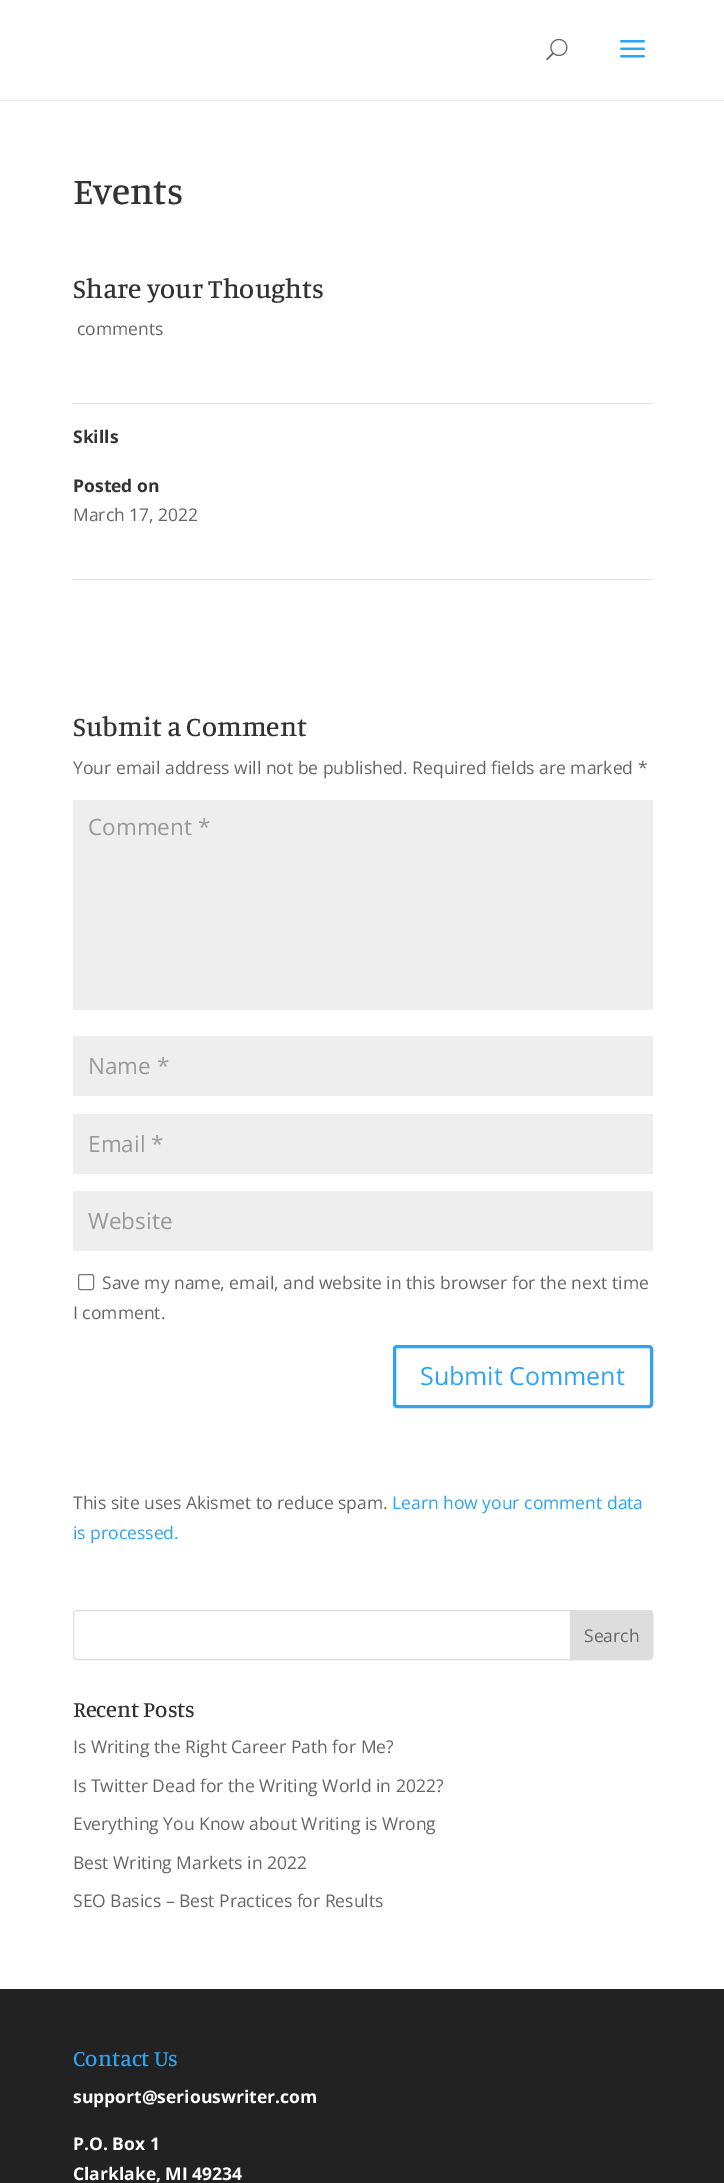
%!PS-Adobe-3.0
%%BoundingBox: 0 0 724 2183
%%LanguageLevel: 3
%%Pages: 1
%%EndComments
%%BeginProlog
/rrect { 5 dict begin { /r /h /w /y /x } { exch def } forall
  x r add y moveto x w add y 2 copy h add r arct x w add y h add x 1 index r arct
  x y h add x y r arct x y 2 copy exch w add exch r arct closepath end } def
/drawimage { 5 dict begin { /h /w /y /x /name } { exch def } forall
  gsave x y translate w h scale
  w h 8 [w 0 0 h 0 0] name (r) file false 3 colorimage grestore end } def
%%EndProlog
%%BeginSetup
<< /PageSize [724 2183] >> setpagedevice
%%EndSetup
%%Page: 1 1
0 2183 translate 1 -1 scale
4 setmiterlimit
1 setgray
0 0 724 2183 rectfill
0.902 setgray
0 100 724 1 rectfill
(images/1.raw) 546 38 22 23 drawimage
(images/2.raw) 620 40 25 18 drawimage
0.886 setgray
73 403 580 1 rectfill
73 579 580 1 rectfill
0.933 setgray
73 800 580 210 rectfill
73 1036 580 60 rectfill
73 1114 580 60 rectfill
73 1191 580 60 rectfill
0.463 setgray
78.5 1274.5 15 15 2 rrect stroke
0.18 0.639 0.949 setrgbcolor
3 setlinewidth
394.5 1346.5 257 60 2.5 rrect stroke
0.867 setgray
1 setlinewidth
73.5 1610.5 579 49 3.5 rrect stroke
newpath 570.5 1610.5 moveto 649 1610.5 lineto 651 1610.5 652.5 1612 652.5 1614 curveto 652.5 1656 lineto 652.5 1658 651 1659.5 649 1659.5 curveto 570.5 1659.5 lineto closepath gsave fill grestore
stroke
0.133 setgray
0 1989 724 194 rectfill
/Manuale-Medium [37.5 0 0 -37.5 0 0] selectfont
0.2 setgray
73 204 moveto (Events) show
/Manuale-Medium [27.5 0 0 -27.5 0 0] selectfont
73 298 moveto (Share your Thoughts) show
/OpenSans-Regular [17.5 0 0 -17.5 0 0] selectfont
0.4 setgray
77 335 moveto (comments) show
/OpenSans-Bold [17.5 0 0 -17.5 0 0] selectfont
0.2 setgray
73 443 moveto (Skills) show
73 492 moveto (Posted on) show
/OpenSans-Regular [17.5 0 0 -17.5 0 0] selectfont
0.4 setgray
73 521 moveto (March 17, 2022) show
/Manuale-Medium [27.5 0 0 -27.5 0 0] selectfont
0.2 setgray
73 736 moveto (Submit a Comment) show
/OpenSans-Regular [17.5 0 0 -17.5 0 0] selectfont
0.4 setgray
73 774 moveto (Your email address will not be published. Required fields are marked *) show
/OpenSans-Regular [22.5 0 0 -22.5 0 0] selectfont
0.6 setgray
88 835 moveto (Comment *) show
88 1074 moveto (Name *) show
88 1152 moveto (Email *) show
88 1229 moveto (Website) show
/OpenSans-Regular [17.5 0 0 -17.5 0 0] selectfont
0.4 setgray
102 1289 moveto (Save my name, email, and website in this browser for the next time) show
73 1319 moveto (I comment.) show
/OpenSans-Regular [25 0 0 -25 0 0] selectfont
0.18 0.639 0.949 setrgbcolor
420 1385 moveto (Submit Comment) show
/OpenSans-Regular [17.5 0 0 -17.5 0 0] selectfont
0.4 setgray
73 1509 moveto (This site uses Akismet to reduce spam.) show
0.18 0.639 0.949 setrgbcolor
392 1509 moveto (Learn how your comment data) show
73 1539 moveto (is processed.) show
0.4 setgray
584 1642 moveto (Search) show
/Manuale-Medium [22.5 0 0 -22.5 0 0] selectfont
0.2 setgray
73 1717 moveto (Recent Posts) show
/OpenSans-Regular [17.5 0 0 -17.5 0 0] selectfont
0.4 setgray
73 1753 moveto (Is Writing the Right Career Path for Me?) show
73 1792 moveto (Is Twitter Dead for the Writing World in 2022?) show
73 1830 moveto (Everything You Know about Writing is Wrong) show
73 1869 moveto (Best Writing Markets in 2022) show
73 1907 moveto (SEO Basics – Best Practices for Results) show
/Manuale-Medium [22.5 0 0 -22.5 0 0] selectfont
0.18 0.639 0.949 setrgbcolor
73 2066 moveto (Contact Us) show
/OpenSans-Bold [17.5 0 0 -17.5 0 0] selectfont
1 setgray
73 2103 moveto (support@seriouswriter.com) show
73 2150 moveto (P.O. Box 1) show
73 2180 moveto (Clarklake, MI 49234) show
showpage
%%EOF
